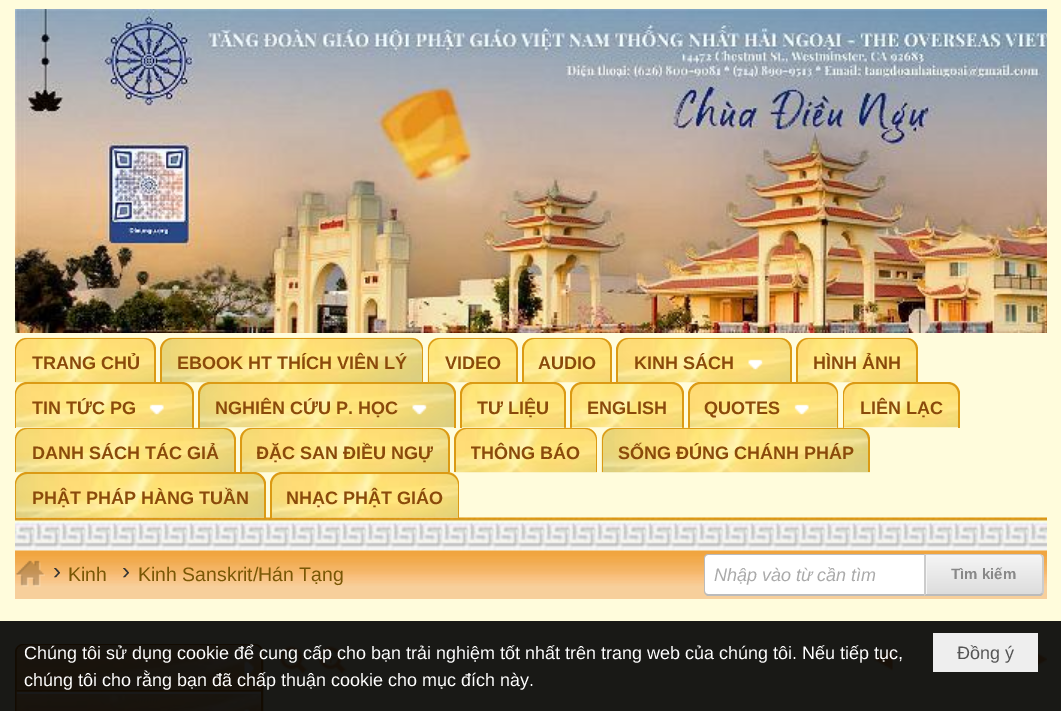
%!PS-Adobe-3.0
%%BoundingBox: 0 0 1061 711
%%LanguageLevel: 3
%%Pages: 1
%%EndComments
%%BeginProlog
/setalpha { dup .setfillconstantalpha .setstrokeconstantalpha } def
/rrect { 5 dict begin { /r /h /w /y /x } { exch def } forall
  x r add y moveto x w add y 2 copy h add r arct x w add y h add x 1 index r arct
  x y h add x y r arct x y 2 copy exch w add exch r arct closepath end } def
/drawimage { 5 dict begin { /h /w /y /x /name } { exch def } forall
  gsave x y translate w h scale
  w h 8 [w 0 0 h 0 0] name (r) file false 3 colorimage grestore end } def
%%EndProlog
%%BeginSetup
<< /PageSize [1061 711] /PageUsesTransparency true >> setpagedevice
%%EndSetup
%%Page: 1 1
0 .pushpdf14devicefilter
0 711 translate 1 -1 scale
4 setmiterlimit
1 0.988 0.863 setrgbcolor
0 0 1061 711 rectfill
(images/1.raw) 15 9 1032 324 drawimage
(images/2.raw) 15 517 1032 34 drawimage
(images/3.raw) 15 337 141 46 drawimage
0.859 0.604 0.078 setrgbcolor
newpath 27 338 moveto 144 338 lineto 151 338 156 343 156 350 curveto 156 382 lineto 15 382 lineto 15 350 lineto 15 343 20 338 27 338 curveto closepath 27 339 moveto 144 339 lineto 150 339 154 344 154 350 curveto 154 382 lineto 16 382 lineto 16 350 lineto 16 344 21 339 27 339 curveto closepath eofill
(images/4.raw) 160 337 263 46 drawimage
newpath 172 338 moveto 411 338 lineto 418 338 423 343 423 350 curveto 423 382 lineto 160 382 lineto 160 350 lineto 160 343 166 338 172 338 curveto closepath 172 339 moveto 411 339 lineto 417 339 422 344 422 350 curveto 422 382 lineto 162 382 lineto 162 350 lineto 162 344 167 339 172 339 curveto closepath eofill
(images/5.raw) 427 337 91 46 drawimage
newpath 440 338 moveto 506 338 lineto 512 338 518 343 518 350 curveto 518 382 lineto 428 382 lineto 428 350 lineto 428 343 433 338 440 338 curveto closepath 440 339 moveto 506 339 lineto 511 339 516 344 516 350 curveto 516 382 lineto 429 382 lineto 429 350 lineto 429 344 434 339 440 339 curveto closepath eofill
(images/6.raw) 522 337 90 46 drawimage
newpath 534 338 moveto 600 338 lineto 607 338 612 343 612 350 curveto 612 382 lineto 522 382 lineto 522 350 lineto 522 343 527 338 534 338 curveto closepath 534 339 moveto 600 339 lineto 606 339 610 344 610 350 curveto 610 382 lineto 524 382 lineto 524 350 lineto 524 344 528 339 534 339 curveto closepath eofill
(images/7.raw) 616 337 176 46 drawimage
newpath 628 338 moveto 780 338 lineto 787 338 792 343 792 350 curveto 792 382 lineto 616 382 lineto 616 350 lineto 616 343 622 338 628 338 curveto closepath 628 339 moveto 780 339 lineto 786 339 790 344 790 350 curveto 790 382 lineto 618 382 lineto 618 350 lineto 618 344 623 339 628 339 curveto closepath eofill
(images/8.raw) 748 359 15 11 drawimage
(images/9.raw) 796 337 122 46 drawimage
newpath 808 338 moveto 906 338 lineto 913 338 918 343 918 350 curveto 918 382 lineto 796 382 lineto 796 350 lineto 796 343 802 338 808 338 curveto closepath 808 339 moveto 906 339 lineto 912 339 916 344 916 350 curveto 916 382 lineto 798 382 lineto 798 350 lineto 798 344 803 339 808 339 curveto closepath eofill
(images/10.raw) 15 382 179 46 drawimage
newpath 27 382 moveto 182 382 lineto 188 382 194 388 194 394 curveto 194 428 lineto 15 428 lineto 15 394 lineto 15 388 20 382 27 382 curveto closepath 27 384 moveto 182 384 lineto 187 384 192 389 192 394 curveto 192 428 lineto 16 428 lineto 16 394 lineto 16 389 21 384 27 384 curveto closepath eofill
(images/11.raw) 149 404 15 11 drawimage
(images/12.raw) 198 382 258 46 drawimage
newpath 210 382 moveto 444 382 lineto 451 382 456 388 456 394 curveto 456 428 lineto 198 428 lineto 198 394 lineto 198 388 203 382 210 382 curveto closepath 210 384 moveto 444 384 lineto 450 384 454 389 454 394 curveto 454 428 lineto 200 428 lineto 200 394 lineto 200 389 204 384 210 384 curveto closepath eofill
(images/13.raw) 412 404 15 11 drawimage
(images/14.raw) 460 382 106 46 drawimage
newpath 472 382 moveto 554 382 lineto 560 382 566 388 566 394 curveto 566 428 lineto 460 428 lineto 460 394 lineto 460 388 466 382 472 382 curveto closepath 472 384 moveto 554 384 lineto 559 384 564 389 564 394 curveto 564 428 lineto 462 428 lineto 462 394 lineto 462 389 467 384 472 384 curveto closepath eofill
(images/15.raw) 570 382 114 46 drawimage
newpath 582 382 moveto 672 382 lineto 679 382 684 388 684 394 curveto 684 428 lineto 570 428 lineto 570 394 lineto 570 388 575 382 582 382 curveto closepath 582 384 moveto 672 384 lineto 678 384 682 389 682 394 curveto 682 428 lineto 572 428 lineto 572 394 lineto 572 389 576 384 582 384 curveto closepath eofill
(images/16.raw) 688 382 151 46 drawimage
newpath 700 382 moveto 826 382 lineto 833 382 838 388 838 394 curveto 838 428 lineto 688 428 lineto 688 394 lineto 688 388 694 382 700 382 curveto closepath 700 384 moveto 826 384 lineto 832 384 837 389 837 394 curveto 837 428 lineto 690 428 lineto 690 394 lineto 690 389 695 384 700 384 curveto closepath eofill
(images/17.raw) 794 404 15 11 drawimage
(images/18.raw) 843 382 117 46 drawimage
newpath 855 382 moveto 948 382 lineto 955 382 960 388 960 394 curveto 960 428 lineto 843 428 lineto 843 394 lineto 843 388 848 382 855 382 curveto closepath 855 384 moveto 948 384 lineto 954 384 958 389 958 394 curveto 958 428 lineto 844 428 lineto 844 394 lineto 844 389 849 384 855 384 curveto closepath eofill
(images/19.raw) 15 427 221 46 drawimage
newpath 27 428 moveto 224 428 lineto 230 428 236 433 236 440 curveto 236 472 lineto 15 472 lineto 15 440 lineto 15 433 20 428 27 428 curveto closepath 27 429 moveto 224 429 lineto 229 429 234 434 234 440 curveto 234 472 lineto 16 472 lineto 16 440 lineto 16 434 21 429 27 429 curveto closepath eofill
(images/20.raw) 240 427 210 46 drawimage
newpath 252 428 moveto 438 428 lineto 445 428 450 433 450 440 curveto 450 472 lineto 240 472 lineto 240 440 lineto 240 433 245 428 252 428 curveto closepath 252 429 moveto 438 429 lineto 444 429 448 434 448 440 curveto 448 472 lineto 242 472 lineto 242 440 lineto 242 434 246 429 252 429 curveto closepath eofill
(images/21.raw) 454 427 143 46 drawimage
newpath 466 428 moveto 585 428 lineto 592 428 597 433 597 440 curveto 597 472 lineto 454 472 lineto 454 440 lineto 454 433 460 428 466 428 curveto closepath 466 429 moveto 585 429 lineto 591 429 596 434 596 440 curveto 596 472 lineto 456 472 lineto 456 440 lineto 456 434 461 429 466 429 curveto closepath eofill
(images/22.raw) 601 427 269 46 drawimage
newpath 614 428 moveto 858 428 lineto 865 428 870 433 870 440 curveto 870 472 lineto 602 472 lineto 602 440 lineto 602 433 607 428 614 428 curveto closepath 614 429 moveto 858 429 lineto 864 429 868 434 868 440 curveto 868 472 lineto 603 472 lineto 603 440 lineto 603 434 608 429 614 429 curveto closepath eofill
(images/23.raw) 15 472 251 46 drawimage
newpath 27 472 moveto 254 472 lineto 260 472 266 478 266 484 curveto 266 518 lineto 15 518 lineto 15 484 lineto 15 478 20 472 27 472 curveto closepath 27 474 moveto 254 474 lineto 259 474 264 479 264 484 curveto 264 518 lineto 16 518 lineto 16 484 lineto 16 479 21 474 27 474 curveto closepath eofill
(images/24.raw) 270 472 189 46 drawimage
newpath 282 472 moveto 447 472 lineto 454 472 459 478 459 484 curveto 459 518 lineto 270 518 lineto 270 484 lineto 270 478 275 472 282 472 curveto closepath 282 474 moveto 447 474 lineto 453 474 458 479 458 484 curveto 458 518 lineto 272 518 lineto 272 484 lineto 272 479 276 474 282 474 curveto closepath eofill
0.969 0.812 0.608 setrgbcolor
15 586 1032 13 rectfill
(images/25.raw) 15 550 1032 36 drawimage
(images/26.raw) 16 560 29 27 drawimage
1 setgray
newpath 708 555 moveto 924 555 lineto 924 594 lineto 708 594 lineto 706.5 594 705 592.5 705 591 curveto 705 558 lineto 705 556.5 706.5 555 708 555 curveto closepath fill
0.733 setgray
newpath 708 554 moveto 924 554 lineto 924 596 lineto 708 596 lineto 706 596 704 593 704 591 curveto 704 558 lineto 704 556 706 554 708 554 curveto closepath 708 555 moveto 924 555 lineto 924 594 lineto 708 594 lineto 706 594 705 593 705 591 curveto 705 558 lineto 705 556 706 555 708 555 curveto closepath eofill
gsave newpath 926 555 moveto 1040 555 lineto 1041.5 555 1043 556.5 1043 558 curveto 1043 591 lineto 1043 592.5 1041.5 594 1040 594 curveto 926 594 lineto closepath clip newpath
<< /ShadingType 2 /ColorSpace /DeviceRGB /Coords [984 555 984 594] /Extend [true true] /Function << /FunctionType 2 /Domain [0 1] /C0 [0.961 0.961 0.961] /C1 [0.867 0.867 0.867] /N 1 >> >> shfill grestore
0.961 setgray
newpath 927 556 moveto 938 556 1041 555 1043 557 curveto 1040 555 lineto 926 555 lineto 926 594 lineto 927 594 lineto closepath fill
0.8 setgray
newpath 926 555 moveto 1040 555 lineto 1042 556 lineto 1042 555 lineto 1040 554 lineto 924 554 lineto 926 556 lineto closepath fill
newpath 1042.5 555 moveto 1043.5 556 1044 557 1044 558 curveto 1044 591 lineto 1044 592 1043.5 593 1043 594 curveto 1041.5 593 lineto 1042 591 lineto 1042 558 lineto 1041.5 556 lineto closepath fill
0.733 setgray
newpath 1041 596 moveto 924 596 lineto 926 594 lineto 1040 594 lineto 1042 593 lineto 1043 594 lineto closepath fill
0.8 setgray
newpath 924 596 moveto 926 594 lineto 926 556 lineto 924 554 lineto closepath fill
0.745 0.431 0.027 setrgbcolor
2 setlinewidth
16 645 246 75 7 rrect stroke
(images/27.raw) 16 645 245 47 drawimage
17 690 244 2 rectfill
(images/28.raw) 244 661 10 15 drawimage
(images/29.raw) 16 691 245 20 drawimage
1 setgray
17 692 244 2 rectfill
(images/30.raw) 244 709 7 2 drawimage
(images/31.raw) 280 646 28 28 drawimage
(images/32.raw) 319 646 28 28 drawimage
(images/33.raw) 874 647 19 24 drawimage
(images/34.raw) 1038 652 9 15 drawimage
0.9 setalpha
0 setgray
0 621 1061 90 rectfill
1 setalpha
0.933 setgray
933 633 105 39 rectfill
gsave
32 347 108 30 rectclip
/LiberationSans-Bold [18 0 0 -18 0 0] selectfont
0.541 0.29 0.039 setrgbcolor
32 369 moveto (TRANG CHỦ) show
grestore
/LiberationSans-Bold [18 0 0 -18 0 0] selectfont
0.541 0.29 0.039 setrgbcolor
177 369 moveto (EBOOK HT THÍCH VIÊN LÝ) show
445 369 moveto (VIDEO) show
538 369 moveto (AUDIO) show
634 369 moveto (KINH SÁCH) show
813 369 moveto (HÌNH ẢNH) show
gsave
32 392 103 30 rectclip
32 414 moveto (TIN TỨC PG) show
grestore
215 414 moveto (NGHIÊN CỨU P. HỌC) show
477 414 moveto (TƯ LIỆU) show
587 414 moveto (ENGLISH) show
704 414 moveto (QUOTES) show
860 414 moveto (LIÊN LẠC) show
32 459 moveto (DANH SÁCH TÁC GIẢ) show
gsave
257 437 177 30 rectclip
256 459 moveto (ĐẶC SAN ĐIỀU NGỰ) show
grestore
gsave
471 437 110 30 rectclip
470 459 moveto (THÔNG BÁO) show
grestore
618 459 moveto (SỐNG ĐÚNG CHÁNH PHÁP) show
32 504 moveto (PHẬT PHÁP HÀNG TUẦN) show
286 504 moveto (NHẠC PHẬT GIÁO) show
/LiberationSans-Regular [24 0 0 -24 0 0] selectfont
0.2 setgray
53 579 moveto (›) show
/LiberationSans-Regular [19.5 0 0 -19.5 0 0] selectfont
0.475 0.341 0.016 setrgbcolor
68 581 moveto (Kinh) show
/LiberationSans-Regular [24 0 0 -24 0 0] selectfont
0.2 setgray
122 579 moveto (›) show
/LiberationSans-Regular [19.5 0 0 -19.5 0 0] selectfont
0.475 0.341 0.016 setrgbcolor
138 581 moveto (Kinh Sanskrit/Hán Tạng) show
/LiberationSans-Italic [18 0 0 -18 0 0] selectfont
0.667 setgray
714 581 moveto (Nhập vào từ cần tìm) show
/LiberationSans-Bold [15 0 0 -15 0 0] selectfont
0.533 setgray
951 579 moveto (Tìm kiếm) show
/LiberationSans-Regular [18 0 0 -18 0 0] selectfont
1 setgray
24 659 moveto (Chúng tôi sử dụng cookie để cung cấp cho bạn trải nghiệm tốt nhất trên trang web của chúng tôi. Nếu tiếp tục,) show
24 686 moveto (chúng tôi cho rằng bạn đã chấp thuận cookie cho mục đích này.) show
0.333 setgray
957 659 moveto (Đồng ý) show
.poppdf14devicefilter showpage
%%EOF
